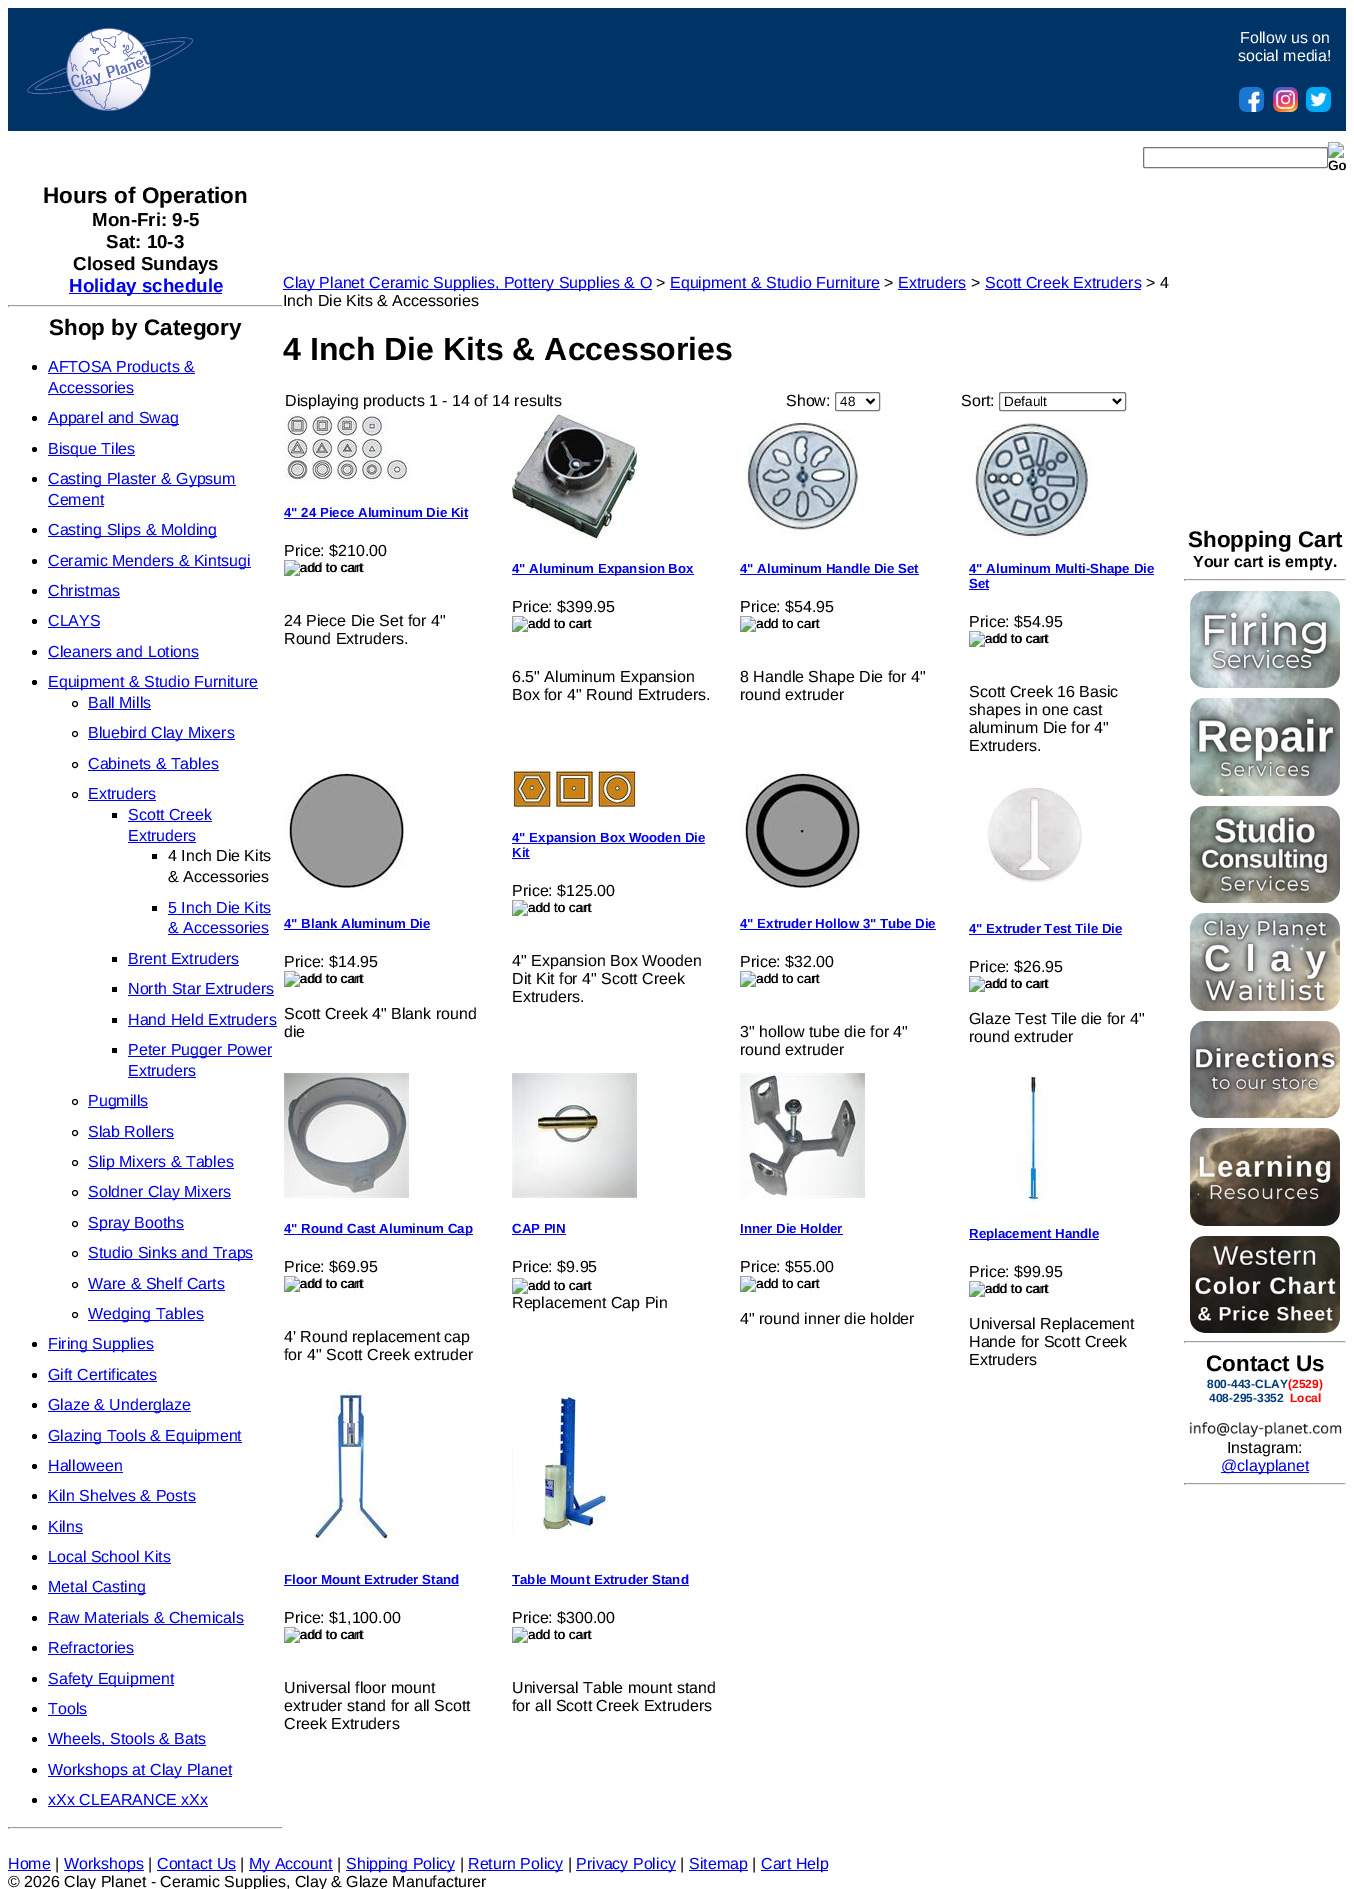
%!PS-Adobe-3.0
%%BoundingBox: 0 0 1354 1889
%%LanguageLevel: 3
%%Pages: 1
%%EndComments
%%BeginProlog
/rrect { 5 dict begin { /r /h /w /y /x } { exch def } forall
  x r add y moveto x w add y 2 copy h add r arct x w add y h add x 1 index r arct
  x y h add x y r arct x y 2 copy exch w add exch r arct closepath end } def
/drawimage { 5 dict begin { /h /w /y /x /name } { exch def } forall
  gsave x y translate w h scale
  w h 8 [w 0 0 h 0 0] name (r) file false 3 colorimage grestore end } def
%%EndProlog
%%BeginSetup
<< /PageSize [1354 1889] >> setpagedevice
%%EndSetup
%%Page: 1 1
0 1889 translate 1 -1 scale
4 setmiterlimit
1 setgray
0 0 1354 1889 rectfill
0 0.2 0.4 setrgbcolor
8 8 1338 123 rectfill
(images/1.raw) 27 28 166 83 drawimage
(images/2.raw) 1239 87 25 25 drawimage
(images/3.raw) 1273 87 25 25 drawimage
(images/4.raw) 1306 87 25 25 drawimage
0.463 setgray
1143.5 147.5 184 20 1.5 rrect stroke
(images/5.raw) 1328 142 18 28 drawimage
0 0 0.933 setrgbcolor
69 293 153 1 rectfill
0.624 setgray
8 305 275 1 rectfill
0.933 setgray
282 305 1 2 rectfill
8 306 275 1 rectfill
0.624 setgray
8 305 1 2 rectfill
0 setgray
newpath 34.5 367.5 2.5 0 360 arc closepath fill
0 0 0.933 setrgbcolor
48 373 147 1 rectfill
48 394 86 1 rectfill
0 setgray
newpath 34.5 418.5 2.5 0 360 arc closepath fill
0 0 0.933 setrgbcolor
48 424 131 1 rectfill
0 setgray
newpath 34.5 449.5 2.5 0 360 arc closepath fill
0 0 0.933 setrgbcolor
48 455 87 1 rectfill
0 setgray
newpath 34.5 479.5 2.5 0 360 arc closepath fill
0 0 0.933 setrgbcolor
48 485 188 1 rectfill
48 506 56 1 rectfill
0 setgray
newpath 34.5 530.5 2.5 0 360 arc closepath fill
0 0 0.933 setrgbcolor
48 536 169 1 rectfill
0 setgray
newpath 34.5 561.5 2.5 0 360 arc closepath fill
0 0 0.933 setrgbcolor
48 567 203 1 rectfill
0 setgray
newpath 34.5 591.5 2.5 0 360 arc closepath fill
0 0 0.933 setrgbcolor
48 597 72 1 rectfill
0 setgray
newpath 34.5 621.5 2.5 0 360 arc closepath fill
0 0 0.933 setrgbcolor
48 627 52 1 rectfill
0 setgray
newpath 34.5 652.5 2.5 0 360 arc closepath fill
0 0 0.933 setrgbcolor
48 658 151 1 rectfill
0 setgray
newpath 34.5 682.5 2.5 0 360 arc closepath fill
0 0 0.933 setrgbcolor
48 688 210 1 rectfill
0 setgray
newpath 75 704 2.5 0 360 arc closepath stroke
0 0 0.933 setrgbcolor
88 709 63 1 rectfill
0 setgray
newpath 75 734 2.5 0 360 arc closepath stroke
0 0 0.933 setrgbcolor
88 739 147 1 rectfill
0 setgray
newpath 75 765 2.5 0 360 arc closepath stroke
0 0 0.933 setrgbcolor
88 770 131 1 rectfill
0 setgray
newpath 75 795 2.5 0 360 arc closepath stroke
0 0 0.933 setrgbcolor
88 800 68 1 rectfill
0 setgray
112 813 5 5 rectfill
0 0 0.933 setrgbcolor
128 821 84 1 rectfill
128 842 68 1 rectfill
0 setgray
152 854 5 5 rectfill
152 906 5 5 rectfill
0 0 0.933 setrgbcolor
168 914 103 1 rectfill
168 934 101 1 rectfill
0 setgray
112 957 5 5 rectfill
0 0 0.933 setrgbcolor
128 965 111 1 rectfill
0 setgray
112 987 5 5 rectfill
0 0 0.933 setrgbcolor
128 995 146 1 rectfill
0 setgray
112 1018 5 5 rectfill
0 0 0.933 setrgbcolor
128 1026 149 1 rectfill
0 setgray
112 1048 5 5 rectfill
0 0 0.933 setrgbcolor
128 1056 144 1 rectfill
128 1077 68 1 rectfill
0 setgray
newpath 75 1102 2.5 0 360 arc closepath stroke
0 0 0.933 setrgbcolor
88 1107 60 1 rectfill
0 setgray
newpath 75 1133 2.5 0 360 arc closepath stroke
0 0 0.933 setrgbcolor
88 1138 86 1 rectfill
0 setgray
newpath 75 1163 2.5 0 360 arc closepath stroke
0 0 0.933 setrgbcolor
88 1168 146 1 rectfill
0 setgray
newpath 75 1193 2.5 0 360 arc closepath stroke
0 0 0.933 setrgbcolor
88 1198 143 1 rectfill
0 setgray
newpath 75 1224 2.5 0 360 arc closepath stroke
0 0 0.933 setrgbcolor
88 1229 96 1 rectfill
0 setgray
newpath 75 1254 2.5 0 360 arc closepath stroke
0 0 0.933 setrgbcolor
88 1259 165 1 rectfill
0 setgray
newpath 75 1285 2.5 0 360 arc closepath stroke
0 0 0.933 setrgbcolor
88 1290 137 1 rectfill
0 setgray
newpath 75 1315 2.5 0 360 arc closepath stroke
0 0 0.933 setrgbcolor
88 1320 116 1 rectfill
0 setgray
newpath 34.5 1344.5 2.5 0 360 arc closepath fill
0 0 0.933 setrgbcolor
48 1350 106 1 rectfill
0 setgray
newpath 34.5 1375.5 2.5 0 360 arc closepath fill
0 0 0.933 setrgbcolor
48 1381 109 1 rectfill
0 setgray
newpath 34.5 1405.5 2.5 0 360 arc closepath fill
0 0 0.933 setrgbcolor
48 1411 143 1 rectfill
0 setgray
newpath 34.5 1436.5 2.5 0 360 arc closepath fill
0 0 0.933 setrgbcolor
48 1442 194 1 rectfill
0 setgray
newpath 34.5 1466.5 2.5 0 360 arc closepath fill
0 0 0.933 setrgbcolor
48 1472 75 1 rectfill
0 setgray
newpath 34.5 1496.5 2.5 0 360 arc closepath fill
0 0 0.933 setrgbcolor
48 1502 148 1 rectfill
0 setgray
newpath 34.5 1527.5 2.5 0 360 arc closepath fill
0 0 0.933 setrgbcolor
48 1533 35 1 rectfill
0 setgray
newpath 34.5 1557.5 2.5 0 360 arc closepath fill
0 0 0.933 setrgbcolor
48 1563 123 1 rectfill
0 setgray
newpath 34.5 1587.5 2.5 0 360 arc closepath fill
0 0 0.933 setrgbcolor
48 1593 98 1 rectfill
0 setgray
newpath 34.5 1618.5 2.5 0 360 arc closepath fill
0 0 0.933 setrgbcolor
48 1624 196 1 rectfill
0 setgray
newpath 34.5 1648.5 2.5 0 360 arc closepath fill
0 0 0.933 setrgbcolor
48 1654 86 1 rectfill
0 setgray
newpath 34.5 1679.5 2.5 0 360 arc closepath fill
0 0 0.933 setrgbcolor
48 1685 126 1 rectfill
0 setgray
newpath 34.5 1709.5 2.5 0 360 arc closepath fill
0 0 0.933 setrgbcolor
48 1715 39 1 rectfill
0 setgray
newpath 34.5 1739.5 2.5 0 360 arc closepath fill
0 0 0.933 setrgbcolor
48 1745 158 1 rectfill
0 setgray
newpath 34.5 1770.5 2.5 0 360 arc closepath fill
0 0 0.933 setrgbcolor
48 1776 184 1 rectfill
0 setgray
newpath 34.5 1800.5 2.5 0 360 arc closepath fill
0 0 0.933 setrgbcolor
48 1806 160 1 rectfill
0.624 setgray
8 1827 275 1 rectfill
0.933 setgray
282 1827 1 2 rectfill
8 1828 275 1 rectfill
0.624 setgray
8 1827 1 2 rectfill
0 0 0.933 setrgbcolor
283 289 369 1 rectfill
670 289 210 1 rectfill
898 289 68 1 rectfill
985 289 156 1 rectfill
0.463 setgray
835.5 392.5 44 18 1.5 rrect stroke
0 setgray
2 setlinewidth
newpath 866.5 399 moveto 870.5 403 lineto 874.5 399 lineto stroke
0.463 setgray
1 setlinewidth
999.5 392.5 126 18 1.5 rrect stroke
0 setgray
2 setlinewidth
newpath 1113 399 moveto 1117 403 lineto 1121 399 lineto stroke
(images/6.raw) 284 414 125 69 drawimage
0 0 0.933 setrgbcolor
284 518 184 1 rectfill
(images/7.raw) 284 560 78 16 drawimage
(images/8.raw) 512 414 125 125 drawimage
512 574 182 1 rectfill
(images/9.raw) 512 616 79 16 drawimage
(images/10.raw) 740 422 120 112 drawimage
740 574 179 1 rectfill
(images/11.raw) 740 616 79 16 drawimage
(images/12.raw) 969 422 125 117 drawimage
969 574 185 1 rectfill
969 589 20 1 rectfill
(images/13.raw) 969 631 79 16 drawimage
(images/14.raw) 284 769 120 120 drawimage
284 929 146 1 rectfill
(images/7.raw) 284 971 78 16 drawimage
(images/15.raw) 512 769 125 39 drawimage
512 843 193 1 rectfill
512 858 18 1 rectfill
(images/9.raw) 512 900 79 16 drawimage
(images/16.raw) 740 769 120 120 drawimage
740 929 196 1 rectfill
(images/11.raw) 740 971 79 16 drawimage
(images/17.raw) 985 786 98 97 drawimage
969 934 153 1 rectfill
(images/13.raw) 969 976 79 16 drawimage
(images/18.raw) 284 1073 125 125 drawimage
284 1234 189 1 rectfill
(images/7.raw) 284 1276 78 16 drawimage
(images/19.raw) 512 1073 125 125 drawimage
512 1234 54 1 rectfill
(images/9.raw) 512 1278 79 16 drawimage
(images/20.raw) 740 1073 125 125 drawimage
740 1234 103 1 rectfill
(images/11.raw) 740 1276 79 16 drawimage
(images/21.raw) 1017 1073 32 129 drawimage
969 1239 130 1 rectfill
(images/13.raw) 969 1281 79 16 drawimage
(images/22.raw) 309 1383 87 160 drawimage
284 1585 175 1 rectfill
(images/7.raw) 284 1627 78 16 drawimage
(images/23.raw) 512 1383 96 156 drawimage
512 1585 177 1 rectfill
(images/9.raw) 512 1627 79 16 drawimage
0.624 setgray
1184 579 162 1 rectfill
0.933 setgray
1345 579 1 2 rectfill
1184 580 162 1 rectfill
0.624 setgray
1184 579 1 2 rectfill
(images/24.raw) 1190 591 150 97 drawimage
(images/25.raw) 1190 698 150 98 drawimage
(images/26.raw) 1190 806 150 97 drawimage
(images/27.raw) 1190 913 150 98 drawimage
(images/28.raw) 1190 1021 150 97 drawimage
(images/29.raw) 1190 1128 150 98 drawimage
(images/30.raw) 1190 1236 150 97 drawimage
1184 1341 162 1 rectfill
0.933 setgray
1345 1341 1 2 rectfill
1184 1342 162 1 rectfill
0.624 setgray
1184 1341 1 2 rectfill
(images/31.raw) 1189 1422 153 16 drawimage
0 0 0.933 setrgbcolor
1221 1472 88 1 rectfill
0.624 setgray
1184 1483 162 1 rectfill
0.933 setgray
1345 1483 1 2 rectfill
1184 1484 162 1 rectfill
0.624 setgray
1184 1483 1 2 rectfill
0 0 0.933 setrgbcolor
8 1870 43 1 rectfill
64 1870 80 1 rectfill
157 1870 79 1 rectfill
249 1870 84 1 rectfill
346 1870 109 1 rectfill
468 1870 95 1 rectfill
576 1870 100 1 rectfill
689 1870 59 1 rectfill
761 1870 67 1 rectfill
/LiberationSans-Regular [16 0 0 -16 0 0] selectfont
1 setgray
1240 43 moveto (Follow us on) show
1238 61 moveto (social media!) show
/LiberationSans-Regular [13.5 0 0 -13.5 0 0] selectfont
0 setgray
1328 170 moveto (Go) show
/LiberationSans-Bold [22.5 0 0 -22.5 0 0] selectfont
43 203 moveto (Hours of Operation) show
/LiberationSans-Bold [18.75 0 0 -18.75 0 0] selectfont
92 226 moveto (Mon-Fri: 9-5) show
106 248 moveto (Sat: 10-3) show
73 270 moveto (Closed Sundays) show
0 0 0.933 setrgbcolor
69 292 moveto (Holiday schedule) show
/LiberationSans-Bold [22.5 0 0 -22.5 0 0] selectfont
0 setgray
49 335 moveto (Shop by Category) show
/LiberationSans-Regular [16 0 0 -16 0 0] selectfont
0 0 0.933 setrgbcolor
48 372 moveto (AFTOSA Products &) show
48 393 moveto (Accessories) show
48 423 moveto (Apparel and Swag) show
48 454 moveto (Bisque Tiles) show
48 484 moveto (Casting Plaster & Gypsum) show
48 505 moveto (Cement) show
48 535 moveto (Casting Slips & Molding) show
48 566 moveto (Ceramic Menders & Kintsugi) show
48 596 moveto (Christmas) show
48 626 moveto (CLAYS) show
48 657 moveto (Cleaners and Lotions) show
48 687 moveto (Equipment & Studio Furniture) show
88 708 moveto (Ball Mills) show
88 738 moveto (Bluebird Clay Mixers) show
88 769 moveto (Cabinets & Tables) show
88 799 moveto (Extruders) show
128 820 moveto (Scott Creek) show
128 841 moveto (Extruders) show
0 setgray
168 861 moveto (4 Inch Die Kits) show
168 882 moveto (& Accessories) show
0 0 0.933 setrgbcolor
168 913 moveto (5 Inch Die Kits) show
168 933 moveto (& Accessories) show
128 964 moveto (Brent Extruders) show
128 994 moveto (North Star Extruders) show
128 1025 moveto (Hand Held Extruders) show
128 1055 moveto (Peter Pugger Power) show
128 1076 moveto (Extruders) show
88 1106 moveto (Pugmills) show
88 1137 moveto (Slab Rollers) show
88 1167 moveto (Slip Mixers & Tables) show
88 1197 moveto (Soldner Clay Mixers) show
88 1228 moveto (Spray Booths) show
88 1258 moveto (Studio Sinks and Traps) show
88 1289 moveto (Ware & Shelf Carts) show
88 1319 moveto (Wedging Tables) show
48 1349 moveto (Firing Supplies) show
48 1380 moveto (Gift Certificates) show
48 1410 moveto (Glaze & Underglaze) show
48 1441 moveto (Glazing Tools & Equipment) show
48 1471 moveto (Halloween) show
48 1501 moveto (Kiln Shelves & Posts) show
48 1532 moveto (Kilns) show
48 1562 moveto (Local School Kits) show
48 1592 moveto (Metal Casting) show
48 1623 moveto (Raw Materials & Chemicals) show
48 1653 moveto (Refractories) show
48 1684 moveto (Safety Equipment) show
48 1714 moveto (Tools) show
48 1744 moveto (Wheels, Stools & Bats) show
48 1775 moveto (Workshops at Clay Planet) show
48 1805 moveto (xXx CLEARANCE xXx) show
283 288 moveto (Clay Planet Ceramic Supplies, Pottery Supplies & O) show
0 setgray
656 288 moveto (>) show
0 0 0.933 setrgbcolor
670 288 moveto (Equipment & Studio Furniture) show
0 setgray
884 288 moveto (>) show
0 0 0.933 setrgbcolor
898 288 moveto (Extruders) show
0 setgray
971 288 moveto (>) show
0 0 0.933 setrgbcolor
985 288 moveto (Scott Creek Extruders) show
0 setgray
1146 288 moveto (> 4) show
283 306 moveto (Inch Die Kits & Accessories) show
/LiberationSans-Bold [32 0 0 -32 0 0] selectfont
283 360 moveto (4 Inch Die Kits & Accessories) show
/LiberationSans-Regular [16 0 0 -16 0 0] selectfont
285 406 moveto (Displaying products 1 - 14 of 14 results) show
786 406 moveto (Show:) show
/LiberationSans-Regular [13.5 0 0 -13.5 0 0] selectfont
840 406 moveto (48) show
/LiberationSans-Regular [16 0 0 -16 0 0] selectfont
961 406 moveto (Sort:) show
/LiberationSans-Regular [13.5 0 0 -13.5 0 0] selectfont
1004 406 moveto (Default) show
/LiberationSans-Bold [13.25 0 0 -13.25 0 0] selectfont
0 0 0.933 setrgbcolor
284 517 moveto (4" 24 Piece Aluminum Die Kit) show
/LiberationSans-Regular [16 0 0 -16 0 0] selectfont
0 setgray
284 556 moveto (Price: $210.00) show
/LiberationSans-Regular [13.5 0 0 -13.5 0 0] selectfont
300 572 moveto (add to cart) show
/LiberationSans-Regular [16 0 0 -16 0 0] selectfont
284 626 moveto (24 Piece Die Set for 4") show
284 644 moveto (Round Extruders.) show
/LiberationSans-Bold [13.25 0 0 -13.25 0 0] selectfont
0 0 0.933 setrgbcolor
512 573 moveto (4" Aluminum Expansion Box) show
/LiberationSans-Regular [16 0 0 -16 0 0] selectfont
0 setgray
512 612 moveto (Price: $399.95) show
/LiberationSans-Regular [13.5 0 0 -13.5 0 0] selectfont
528 628 moveto (add to cart) show
/LiberationSans-Regular [16 0 0 -16 0 0] selectfont
512 682 moveto (6.5" Aluminum Expansion) show
512 700 moveto (Box for 4" Round Extruders.) show
/LiberationSans-Bold [13.25 0 0 -13.25 0 0] selectfont
0 0 0.933 setrgbcolor
740 573 moveto (4" Aluminum Handle Die Set) show
/LiberationSans-Regular [16 0 0 -16 0 0] selectfont
0 setgray
740 612 moveto (Price: $54.95) show
/LiberationSans-Regular [13.5 0 0 -13.5 0 0] selectfont
756 628 moveto (add to cart) show
/LiberationSans-Regular [16 0 0 -16 0 0] selectfont
740 682 moveto (8 Handle Shape Die for 4") show
740 700 moveto (round extruder) show
/LiberationSans-Bold [13.25 0 0 -13.25 0 0] selectfont
0 0 0.933 setrgbcolor
969 573 moveto (4" Aluminum Multi-Shape Die) show
969 588 moveto (Set) show
/LiberationSans-Regular [16 0 0 -16 0 0] selectfont
0 setgray
969 627 moveto (Price: $54.95) show
/LiberationSans-Regular [13.5 0 0 -13.5 0 0] selectfont
985 643 moveto (add to cart) show
/LiberationSans-Regular [16 0 0 -16 0 0] selectfont
969 697 moveto (Scott Creek 16 Basic) show
969 715 moveto (shapes in one cast) show
969 733 moveto (aluminum Die for 4") show
969 751 moveto (Extruders.) show
/LiberationSans-Bold [13.25 0 0 -13.25 0 0] selectfont
0 0 0.933 setrgbcolor
284 928 moveto (4" Blank Aluminum Die) show
/LiberationSans-Regular [16 0 0 -16 0 0] selectfont
0 setgray
284 967 moveto (Price: $14.95) show
/LiberationSans-Regular [13.5 0 0 -13.5 0 0] selectfont
300 983 moveto (add to cart) show
/LiberationSans-Regular [16 0 0 -16 0 0] selectfont
284 1019 moveto (Scott Creek 4" Blank round) show
284 1037 moveto (die) show
/LiberationSans-Bold [13.25 0 0 -13.25 0 0] selectfont
0 0 0.933 setrgbcolor
512 842 moveto (4" Expansion Box Wooden Die) show
512 857 moveto (Kit) show
/LiberationSans-Regular [16 0 0 -16 0 0] selectfont
0 setgray
512 896 moveto (Price: $125.00) show
/LiberationSans-Regular [13.5 0 0 -13.5 0 0] selectfont
528 912 moveto (add to cart) show
/LiberationSans-Regular [16 0 0 -16 0 0] selectfont
512 966 moveto (4" Expansion Box Wooden) show
512 984 moveto (Dit Kit for 4" Scott Creek) show
512 1002 moveto (Extruders.) show
/LiberationSans-Bold [13.25 0 0 -13.25 0 0] selectfont
0 0 0.933 setrgbcolor
740 928 moveto (4" Extruder Hollow 3" Tube Die) show
/LiberationSans-Regular [16 0 0 -16 0 0] selectfont
0 setgray
740 967 moveto (Price: $32.00) show
/LiberationSans-Regular [13.5 0 0 -13.5 0 0] selectfont
756 983 moveto (add to cart) show
/LiberationSans-Regular [16 0 0 -16 0 0] selectfont
740 1037 moveto (3" hollow tube die for 4") show
740 1055 moveto (round extruder) show
/LiberationSans-Bold [13.25 0 0 -13.25 0 0] selectfont
0 0 0.933 setrgbcolor
969 933 moveto (4" Extruder Test Tile Die) show
/LiberationSans-Regular [16 0 0 -16 0 0] selectfont
0 setgray
969 972 moveto (Price: $26.95) show
/LiberationSans-Regular [13.5 0 0 -13.5 0 0] selectfont
985 988 moveto (add to cart) show
/LiberationSans-Regular [16 0 0 -16 0 0] selectfont
969 1024 moveto (Glaze Test Tile die for 4") show
969 1042 moveto (round extruder) show
/LiberationSans-Bold [13.25 0 0 -13.25 0 0] selectfont
0 0 0.933 setrgbcolor
284 1233 moveto (4" Round Cast Aluminum Cap) show
/LiberationSans-Regular [16 0 0 -16 0 0] selectfont
0 setgray
284 1272 moveto (Price: $69.95) show
/LiberationSans-Regular [13.5 0 0 -13.5 0 0] selectfont
300 1288 moveto (add to cart) show
/LiberationSans-Regular [16 0 0 -16 0 0] selectfont
284 1342 moveto (4' Round replacement cap) show
284 1360 moveto (for 4" Scott Creek extruder) show
/LiberationSans-Bold [13.25 0 0 -13.25 0 0] selectfont
0 0 0.933 setrgbcolor
512 1233 moveto (CAP PIN) show
/LiberationSans-Regular [16 0 0 -16 0 0] selectfont
0 setgray
512 1272 moveto (Price: $9.95) show
/LiberationSans-Regular [13.5 0 0 -13.5 0 0] selectfont
528 1290 moveto (add to cart) show
/LiberationSans-Regular [16 0 0 -16 0 0] selectfont
512 1308 moveto (Replacement Cap Pin) show
/LiberationSans-Bold [13.25 0 0 -13.25 0 0] selectfont
0 0 0.933 setrgbcolor
740 1233 moveto (Inner Die Holder) show
/LiberationSans-Regular [16 0 0 -16 0 0] selectfont
0 setgray
740 1272 moveto (Price: $55.00) show
/LiberationSans-Regular [13.5 0 0 -13.5 0 0] selectfont
756 1288 moveto (add to cart) show
/LiberationSans-Regular [16 0 0 -16 0 0] selectfont
740 1324 moveto (4" round inner die holder) show
/LiberationSans-Bold [13.25 0 0 -13.25 0 0] selectfont
0 0 0.933 setrgbcolor
969 1238 moveto (Replacement Handle) show
/LiberationSans-Regular [16 0 0 -16 0 0] selectfont
0 setgray
969 1277 moveto (Price: $99.95) show
/LiberationSans-Regular [13.5 0 0 -13.5 0 0] selectfont
985 1293 moveto (add to cart) show
/LiberationSans-Regular [16 0 0 -16 0 0] selectfont
969 1329 moveto (Universal Replacement) show
969 1347 moveto (Hande for Scott Creek) show
969 1365 moveto (Extruders) show
/LiberationSans-Bold [13.25 0 0 -13.25 0 0] selectfont
0 0 0.933 setrgbcolor
284 1584 moveto (Floor Mount Extruder Stand) show
/LiberationSans-Regular [16 0 0 -16 0 0] selectfont
0 setgray
284 1623 moveto (Price: $1,100.00) show
/LiberationSans-Regular [13.5 0 0 -13.5 0 0] selectfont
300 1639 moveto (add to cart) show
/LiberationSans-Regular [16 0 0 -16 0 0] selectfont
284 1693 moveto (Universal floor mount) show
284 1711 moveto (extruder stand for all Scott) show
284 1729 moveto (Creek Extruders) show
/LiberationSans-Bold [13.25 0 0 -13.25 0 0] selectfont
0 0 0.933 setrgbcolor
512 1584 moveto (Table Mount Extruder Stand) show
/LiberationSans-Regular [16 0 0 -16 0 0] selectfont
0 setgray
512 1623 moveto (Price: $300.00) show
/LiberationSans-Regular [13.5 0 0 -13.5 0 0] selectfont
528 1639 moveto (add to cart) show
/LiberationSans-Regular [16 0 0 -16 0 0] selectfont
512 1693 moveto (Universal Table mount stand) show
512 1711 moveto (for all Scott Creek Extruders) show
/LiberationSans-Bold [22.5 0 0 -22.5 0 0] selectfont
1188 547 moveto (Shopping Cart) show
/LiberationSans-Bold [16 0 0 -16 0 0] selectfont
1193 567 moveto (Your cart is empty.) show
/LiberationSans-Bold [22.5 0 0 -22.5 0 0] selectfont
1206 1371 moveto (Contact Us) show
/LiberationSans-Bold [12 0 0 -12 0 0] selectfont
0 0.231 0.475 setrgbcolor
1207 1388 moveto (800-443-CLAY) show
1 0 0 setrgbcolor
1288 1388 moveto (\(2529\)) show
0 0.231 0.475 setrgbcolor
1209 1402 moveto (408-295-3352) show
1 0 0 setrgbcolor
1290 1402 moveto (Local) show
/LiberationSans-Regular [16 0 0 -16 0 0] selectfont
0 setgray
1227 1453 moveto (Instagram:) show
0 0 0.933 setrgbcolor
1221 1471 moveto (@clayplanet) show
8 1869 moveto (Home) show
0 setgray
55 1869 moveto (|) show
0 0 0.933 setrgbcolor
64 1869 moveto (Workshops) show
0 setgray
148 1869 moveto (|) show
0 0 0.933 setrgbcolor
157 1869 moveto (Contact Us) show
0 setgray
240 1869 moveto (|) show
0 0 0.933 setrgbcolor
249 1869 moveto (My Account) show
0 setgray
337 1869 moveto (|) show
0 0 0.933 setrgbcolor
346 1869 moveto (Shipping Policy) show
0 setgray
460 1869 moveto (|) show
0 0 0.933 setrgbcolor
468 1869 moveto (Return Policy) show
0 setgray
568 1869 moveto (|) show
0 0 0.933 setrgbcolor
576 1869 moveto (Privacy Policy) show
0 setgray
680 1869 moveto (|) show
0 0 0.933 setrgbcolor
689 1869 moveto (Sitemap) show
0 setgray
752 1869 moveto (|) show
0 0 0.933 setrgbcolor
761 1869 moveto (Cart Help) show
0 setgray
8 1887 moveto (© 2026 Clay Planet - Ceramic Supplies, Clay & Glaze Manufacturer) show
showpage
%%EOF
